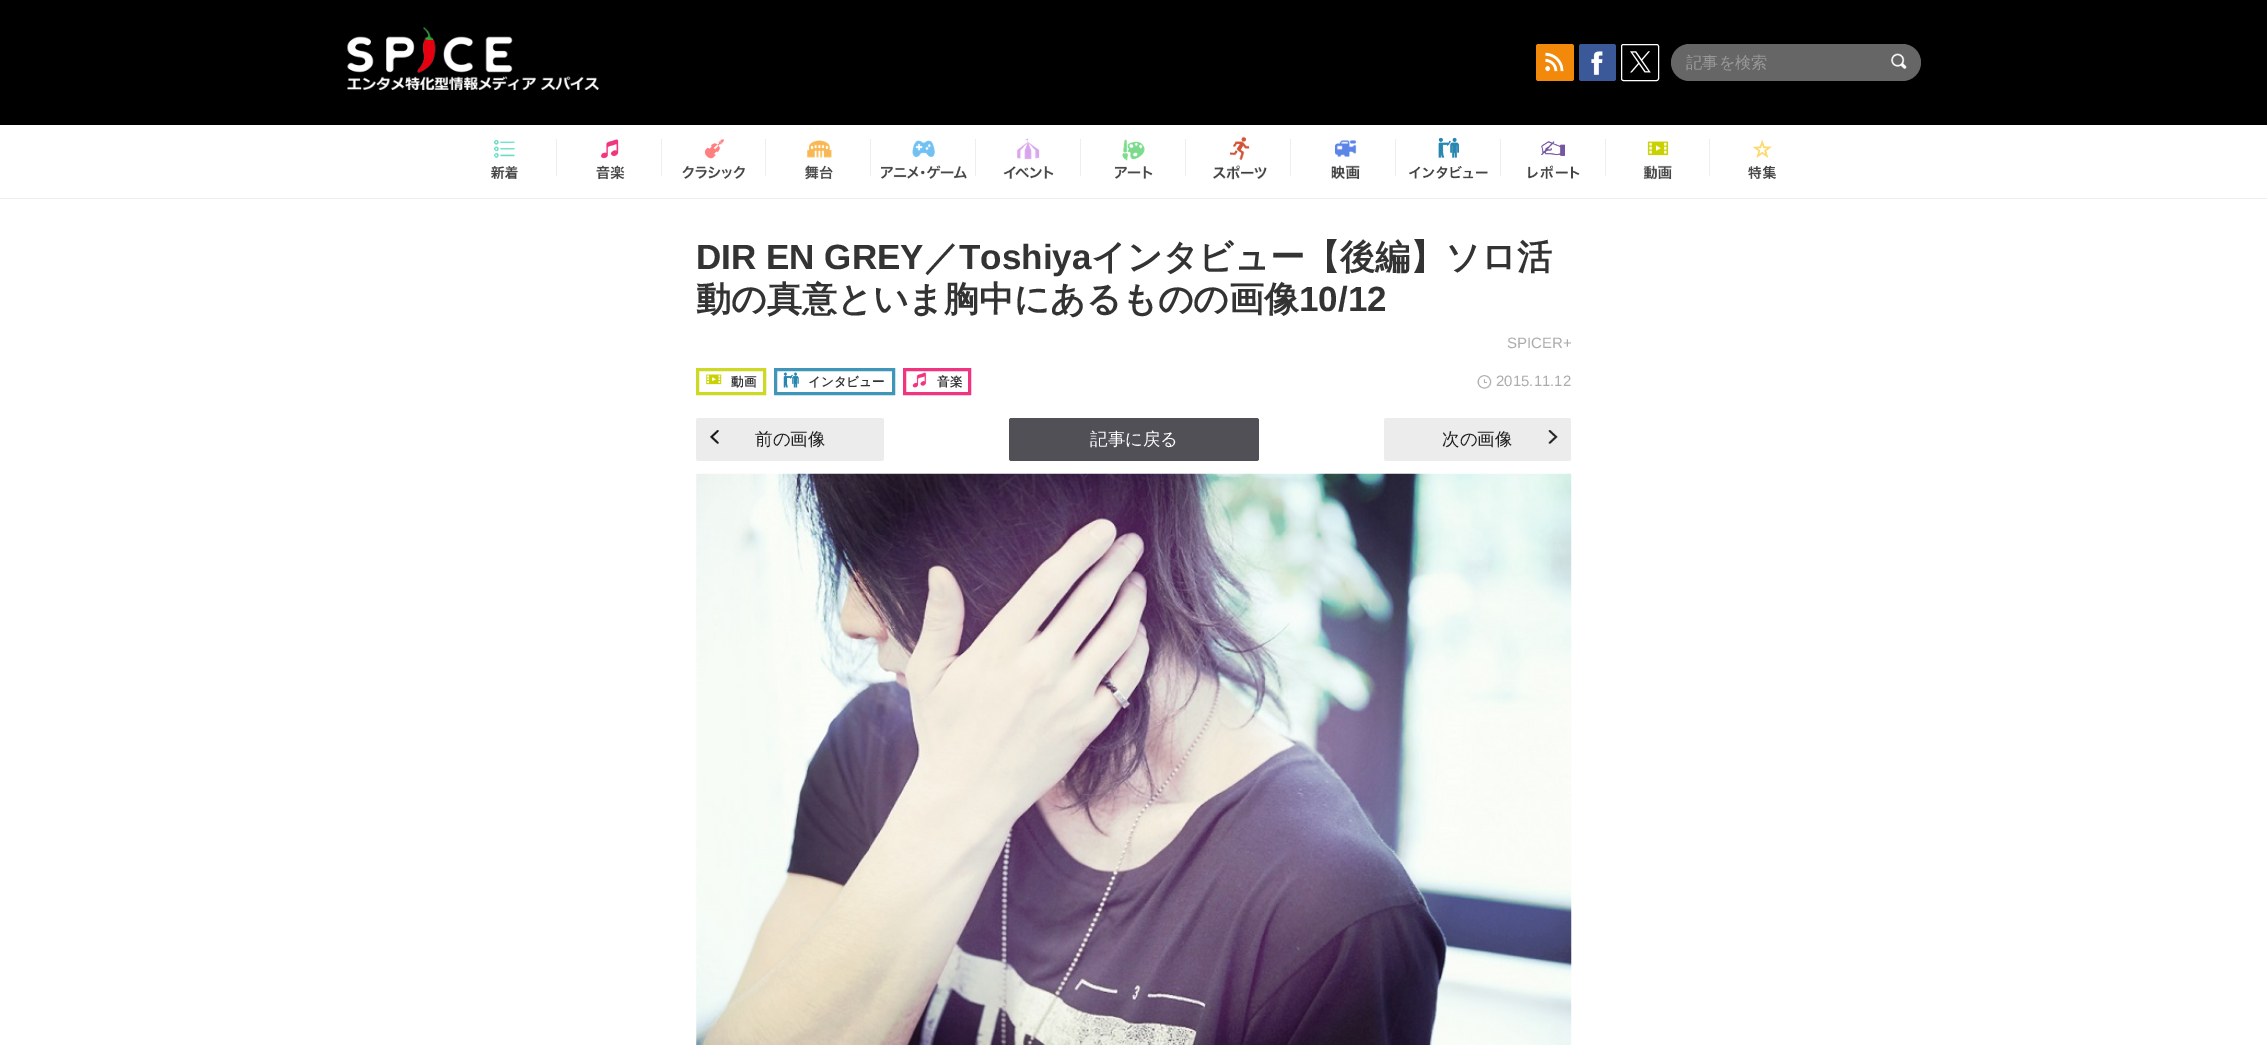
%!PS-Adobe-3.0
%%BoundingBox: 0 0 2267 1045
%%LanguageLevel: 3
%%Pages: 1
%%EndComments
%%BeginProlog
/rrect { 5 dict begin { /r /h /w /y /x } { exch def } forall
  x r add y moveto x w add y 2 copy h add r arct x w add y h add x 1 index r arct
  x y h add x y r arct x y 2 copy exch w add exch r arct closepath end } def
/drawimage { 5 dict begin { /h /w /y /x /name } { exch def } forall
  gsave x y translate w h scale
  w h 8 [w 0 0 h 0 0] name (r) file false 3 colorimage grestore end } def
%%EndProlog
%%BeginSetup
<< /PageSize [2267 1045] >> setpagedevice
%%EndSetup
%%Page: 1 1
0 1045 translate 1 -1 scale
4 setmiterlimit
1 setgray
0 0 2267 1045 rectfill
0 setgray
0 0 2267 125 rectfill
(images/1.raw) 347 27 252 63 drawimage
0.949 0.537 0.039 setrgbcolor
1536 44 38 37 2.5 rrect fill
(images/2.raw) 1545 52 19 20 drawimage
0.231 0.349 0.6 setrgbcolor
1579 44 37 37 2.5 rrect fill
(images/3.raw) 1591 51 12 24 drawimage
1 setgray
1621.5 44.5 37 36 2 rrect stroke
(images/4.raw) 1630 51 21 22 drawimage
0.4 setgray
1671 44 250 37 18.5 rrect fill
(images/5.raw) 1891 53 16 16 drawimage
0.933 setgray
0 198 2267 1 rectfill
(images/6.raw) 491 139 27 40 drawimage
556 139 1 37 rectfill
(images/7.raw) 596 139 29 41 drawimage
661 139 1 37 rectfill
(images/8.raw) 682 139 63 40 drawimage
765 139 1 37 rectfill
(images/9.raw) 805 140 28 40 drawimage
870 139 1 37 rectfill
(images/10.raw) 880 140 87 39 drawimage
975 139 1 37 rectfill
(images/11.raw) 1003 138 51 41 drawimage
1080 139 1 37 rectfill
(images/12.raw) 1114 139 39 40 drawimage
1185 139 1 37 rectfill
(images/13.raw) 1213 136 54 44 drawimage
1290 139 1 37 rectfill
(images/14.raw) 1331 140 29 40 drawimage
1395 139 1 37 rectfill
(images/15.raw) 1408 137 80 42 drawimage
1500 139 1 37 rectfill
(images/16.raw) 1528 141 52 38 drawimage
1605 139 1 37 rectfill
(images/17.raw) 1643 141 29 39 drawimage
1709 139 1 37 rectfill
(images/18.raw) 1748 139 28 40 drawimage
0.808 0.847 0.153 setrgbcolor
3 setlinewidth
697.5 369.5 67 24 rectstroke
(images/19.raw) 706 374 16 11 drawimage
0.247 0.588 0.722 setrgbcolor
775.5 369.5 118 24 rectstroke
(images/20.raw) 783 372 16 16 drawimage
0.937 0.208 0.498 setrgbcolor
904.5 369.5 65 24 rectstroke
(images/21.raw) 912 372 15 16 drawimage
(images/22.raw) 1477 375 15 14 drawimage
0.925 setgray
696 418 188 43 2.5 rrect fill
(images/23.raw) 710 430 9 14 drawimage
0.318 0.314 0.337 setrgbcolor
1009 418 250 43 2.5 rrect fill
0.925 setgray
1384 418 187 43 2.5 rrect fill
(images/24.raw) 1548 430 10 14 drawimage
(images/25.raw) 696 473 876 572 drawimage
/WenQuanYiZenHei-Medium [16.25 0 0 -16.25 0 0] selectfont
0.6 setgray
1686 68 moveto (記事を検索) show
/LiberationSans-Bold [35 0 0 -35 0 0] selectfont
0.2 setgray
696 269 moveto (DIR EN GREY) show
/WenQuanYiZenHei-Bold [35 0 0 -35 0 0] selectfont
924 269 moveto (／) show
/LiberationSans-Bold [35 0 0 -35 0 0] selectfont
959 269 moveto (Toshiya) show
/WenQuanYiZenHei-Bold [35 0 0 -35 0 0] selectfont
1091 269 moveto (インタビュー【後編】ソロ活) show
696 311 moveto (動の真意といま胸中にあるものの画像) show
/LiberationSans-Bold [35 0 0 -35 0 0] selectfont
1299 311 moveto (10/12) show
/LiberationSans-Regular [15 0 0 -15 0 0] selectfont
0.675 setgray
1507 348 moveto (SPICER+) show
/WenQuanYiZenHei-Bold [12.5 0 0 -12.5 0 0] selectfont
0.2 setgray
731 386 moveto (動画) show
808 386 moveto (インタビュー) show
937 386 moveto (音楽) show
/LiberationSans-Regular [15 0 0 -15 0 0] selectfont
0.675 setgray
1496 386 moveto (2015.11.12) show
/WenQuanYiZenHei-Medium [17.5 0 0 -17.5 0 0] selectfont
0.118 setgray
755 445 moveto (前の画像) show
1 setgray
1090 445 moveto (記事に戻る) show
0.118 setgray
1442 445 moveto (次の画像) show
showpage
%%EOF
